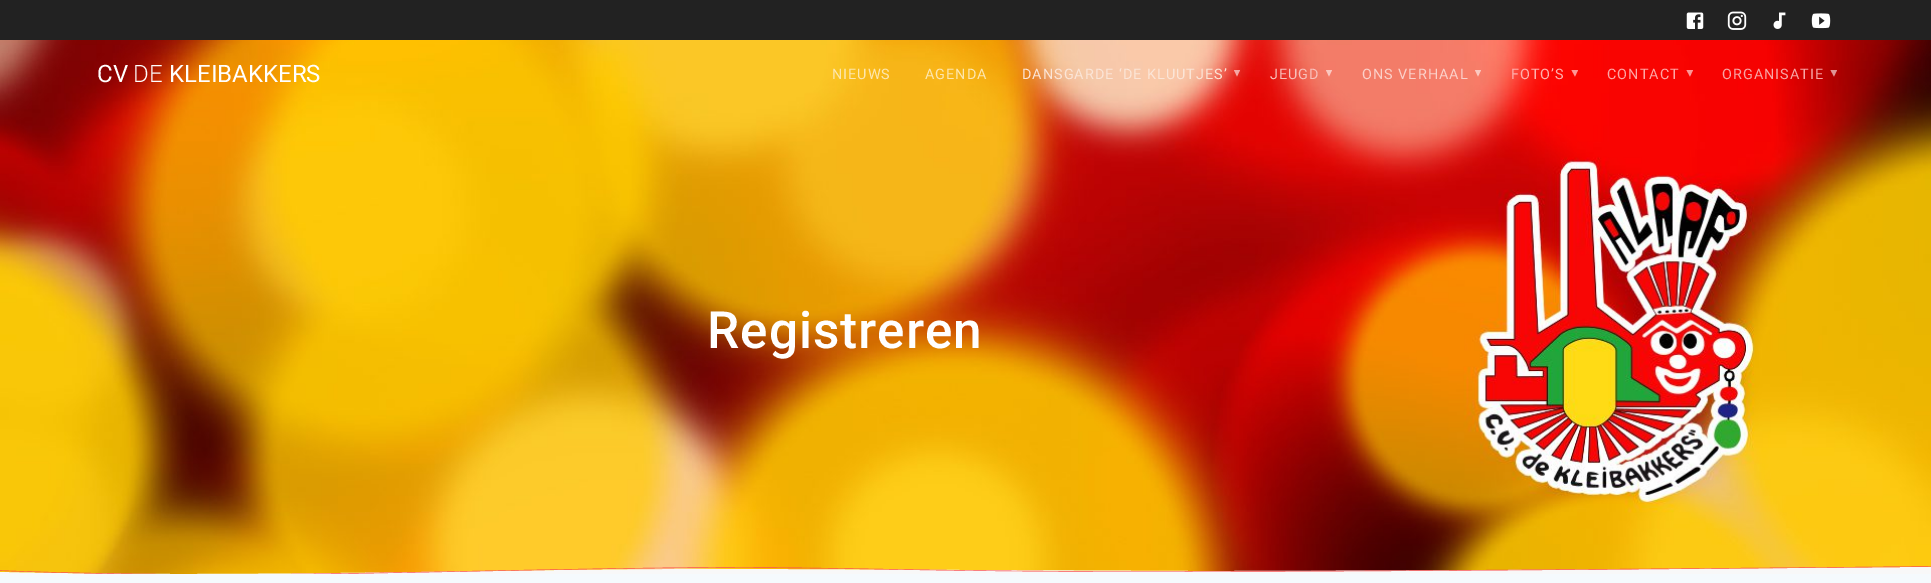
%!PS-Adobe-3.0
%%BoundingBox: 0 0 1931 583
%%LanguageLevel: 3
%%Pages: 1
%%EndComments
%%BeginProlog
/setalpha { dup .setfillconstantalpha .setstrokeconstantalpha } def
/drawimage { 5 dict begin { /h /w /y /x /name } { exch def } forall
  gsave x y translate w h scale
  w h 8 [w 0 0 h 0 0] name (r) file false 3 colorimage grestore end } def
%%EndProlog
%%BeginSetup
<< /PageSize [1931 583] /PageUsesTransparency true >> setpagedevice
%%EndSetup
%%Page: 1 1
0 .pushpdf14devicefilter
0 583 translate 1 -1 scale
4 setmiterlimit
1 setgray
0 0 1931 583 rectfill
0.133 setgray
0 0 1931 40 rectfill
(images/1.raw) 1686 12 18 17 drawimage
(images/2.raw) 1727 11 20 19 drawimage
(images/3.raw) 1773 12 13 17 drawimage
(images/4.raw) 1811 13 20 16 drawimage
(images/5.raw) 0 40 1931 534 drawimage
0.59 setalpha
1 setgray
newpath 1234 70 moveto 1237 76.5 lineto 1240 70 lineto closepath fill
1 setalpha
0.98 0.784 0.753 setrgbcolor
newpath 1326 70 moveto 1329 76.5 lineto 1332 70 lineto closepath fill
0.984 0.788 0.753 setrgbcolor
newpath 1475 70 moveto 1478 76.5 lineto 1481 70 lineto closepath fill
0.996 0.592 0.588 setrgbcolor
newpath 1571.5 70 moveto 1575 76.5 lineto 1578 70 lineto closepath fill
0.988 0.592 0.588 setrgbcolor
newpath 1686.5 70 moveto 1690 76.5 lineto 1693 70 lineto closepath fill
0.59 setalpha
1 setgray
newpath 1830.5 70 moveto 1834 76.5 lineto 1837 70 lineto closepath fill
1 setalpha
0.973 setgray
newpath -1 572 moveto -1 575 lineto 1931 575 lineto 1931 567 lineto 1683 569 1436 571 1188 571 curveto 731 569 lineto 487 569 243 578 -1 572 curveto closepath fill
0.98 0.322 0.322 setrgbcolor
0.4 setlinewidth
newpath 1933.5 566.5 moveto 1601.5 569.5 1352 571.5 1184.5 571.5 curveto 933.5 572 862 567.5 729 567.5 curveto 595.5 567.5 390 574 252 574.5 curveto 160 575 75 573.5 -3 570.5 curveto stroke
0.961 0.98 0.992 setrgbcolor
0 574 1931 9 rectfill
/Roboto-Regular [24 0 0 -24 0 0] selectfont
1 setgray
97 82 moveto (CV) show
/Roboto-Light [24 0 0 -24 0 0] selectfont
133 82 moveto (DE) show
/Roboto-Regular [24 0 0 -24 0 0] selectfont
169 82 moveto (KLEIBAKKERS) show
/Roboto-Regular [14.4 0 0 -14.4 0 0] selectfont
0.992 0.906 0.69 setrgbcolor
832 79 moveto 1 0 (NIEUWS) ashow
925 79 moveto 1 0 (AGENDA) ashow
0.984 0.898 0.843 setrgbcolor
1022 79 moveto 1 0 (DANSGARDE ‘DE KLUUTJES’) ashow
0.973 0.753 0.733 setrgbcolor
1270 79 moveto 1 0 (JEUGD) ashow
0.984 0.82 0.792 setrgbcolor
1362 79 moveto 1 0 (ONS VERHAAL) ashow
0.996 0.694 0.682 setrgbcolor
1511 79 moveto 1 0 (FOTO’S) ashow
0.992 0.655 0.651 setrgbcolor
1607 79 moveto 1 0 (CONTACT) ashow
0.969 0.651 0.651 setrgbcolor
1722 79 moveto 1 0 (ORGANISATIE) ashow
/Roboto-Medium [51.25 0 0 -51.25 0 0] selectfont
1 setgray
707 348 moveto 1 0 (Registreren) ashow
.poppdf14devicefilter showpage
%%EOF
